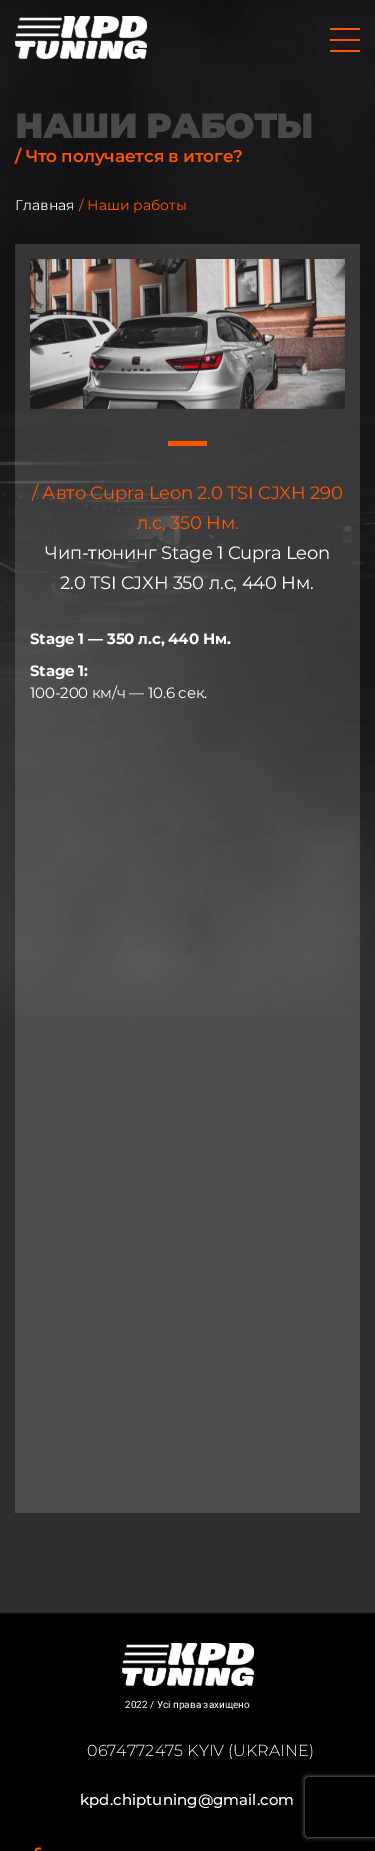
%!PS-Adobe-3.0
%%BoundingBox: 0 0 375 1851
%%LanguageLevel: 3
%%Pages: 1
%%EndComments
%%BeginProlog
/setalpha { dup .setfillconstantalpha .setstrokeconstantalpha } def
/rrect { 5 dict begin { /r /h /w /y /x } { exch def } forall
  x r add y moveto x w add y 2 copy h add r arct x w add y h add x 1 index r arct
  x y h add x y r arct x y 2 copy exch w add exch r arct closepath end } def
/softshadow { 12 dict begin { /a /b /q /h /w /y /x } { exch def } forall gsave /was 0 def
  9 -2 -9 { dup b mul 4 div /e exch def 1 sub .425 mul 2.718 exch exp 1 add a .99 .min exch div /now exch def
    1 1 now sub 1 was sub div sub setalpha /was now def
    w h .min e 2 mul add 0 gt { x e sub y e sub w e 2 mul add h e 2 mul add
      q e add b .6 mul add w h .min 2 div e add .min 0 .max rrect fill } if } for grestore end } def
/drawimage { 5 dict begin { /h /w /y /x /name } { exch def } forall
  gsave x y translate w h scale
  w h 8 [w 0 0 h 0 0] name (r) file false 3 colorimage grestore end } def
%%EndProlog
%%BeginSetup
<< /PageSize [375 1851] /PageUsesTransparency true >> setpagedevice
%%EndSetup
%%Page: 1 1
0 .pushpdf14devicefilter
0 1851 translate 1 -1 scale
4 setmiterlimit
0.18 0.176 0.188 setrgbcolor
0 0 375 1851 rectfill
(images/1.raw) 0 0 375 1017 drawimage
(images/2.raw) 15 16 132 43 drawimage
1 0.329 0 setrgbcolor
330 28 30 2 rectfill
330 39 30 2 rectfill
330 50 30 2 rectfill
0.15 setalpha
1 setgray
15 244 345 1269 rectfill
1 setalpha
(images/3.raw) 30 259 315 150 drawimage
1 0.329 0 setrgbcolor
168 441 39 5 rectfill
0 setgray
0 1613 375 238 rectfill
(images/4.raw) 122 1643 132 43 drawimage
(images/5.raw) 34 1847 8 4 drawimage
gsave
newpath 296 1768 moveto 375 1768 lineto 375 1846 lineto 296 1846 lineto closepath 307 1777 moveto 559 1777 lineto 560 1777 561 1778 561 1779 curveto 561 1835 lineto 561 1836 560 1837 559 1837 curveto 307 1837 lineto 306 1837 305 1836 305 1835 curveto 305 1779 lineto 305 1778 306 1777 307 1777 curveto closepath eoclip newpath
0.502 setgray
305 1777 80 60 2 2.5 1 softshadow
grestore
/Montserrat-Black [35 0 0 -35 0 0] selectfont
0.286 0.286 0.294 setrgbcolor
15 138 moveto -0.9 0 (НАШИ РАБОТЫ) ashow
/Montserrat-SemiBold [17 0 0 -17 0 0] selectfont
1 0.329 0 setrgbcolor
15 162 moveto -0.2 0 (/ Что получается в итоге?) ashow
/Montserrat-Regular [14 0 0 -14 0 0] selectfont
1 setgray
15 210 moveto (Главная) show
1 0.329 0 setrgbcolor
79 210 moveto (/ Наши работы) show
/Montserrat-Regular [18 0 0 -18 0 0] selectfont
32 499 moveto -0.2 0 (/ Авто Cupra Leon 2.0 TSI CJXH 290) ashow
137 529 moveto -0.2 0 (л.с, 350 Нм.) ashow
1 setgray
45 559 moveto -0.2 0 (Чип-тюнинг Stage 1 Cupra Leon) ashow
60 589 moveto -0.2 0 (2.0 TSI CJXH 350 л.с, 440 Нм.) ashow
/Montserrat-Bold [15 0 0 -15 0 0] selectfont
30 644 moveto -0.2 0 (Stage 1 — 350 л.с, 440 Нм.) ashow
30 676 moveto -0.2 0 (Stage 1:) ashow
/Montserrat-Regular [15 0 0 -15 0 0] selectfont
30 698 moveto -0.2 0 (100-200 км/ч — 10.6 сек.) ashow
/Roboto-Regular [10 0 0 -10 0 0] selectfont
125 1708 moveto (2022 / Усі права захищено) show
/Montserrat-Light [16 0 0 -16 0 0] selectfont
87 1756 moveto (0674772475 KYIV \(UKRAINE\)) show
/Montserrat-Medium [15 0 0 -15 0 0] selectfont
80 1805 moveto (kpd.chiptuning@gmail.com) show
.poppdf14devicefilter showpage
%%EOF
